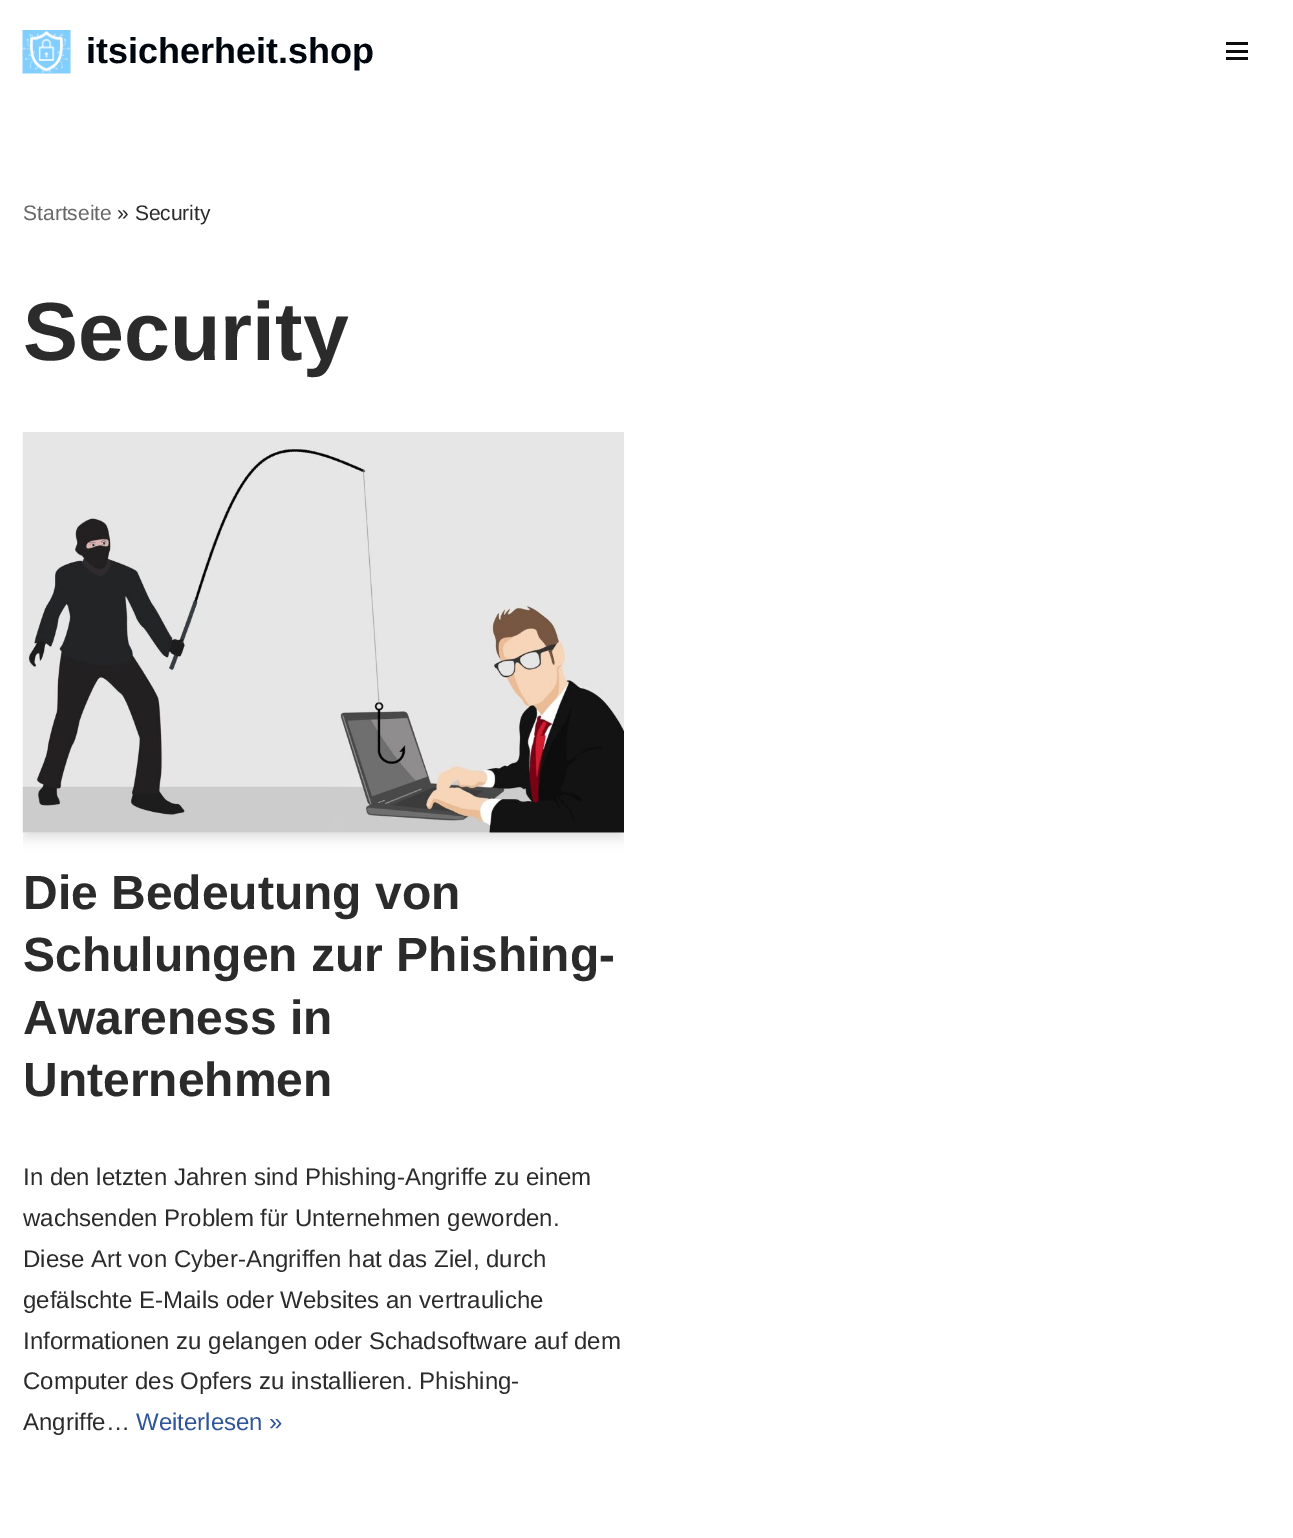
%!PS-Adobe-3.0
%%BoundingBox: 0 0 1293 1538
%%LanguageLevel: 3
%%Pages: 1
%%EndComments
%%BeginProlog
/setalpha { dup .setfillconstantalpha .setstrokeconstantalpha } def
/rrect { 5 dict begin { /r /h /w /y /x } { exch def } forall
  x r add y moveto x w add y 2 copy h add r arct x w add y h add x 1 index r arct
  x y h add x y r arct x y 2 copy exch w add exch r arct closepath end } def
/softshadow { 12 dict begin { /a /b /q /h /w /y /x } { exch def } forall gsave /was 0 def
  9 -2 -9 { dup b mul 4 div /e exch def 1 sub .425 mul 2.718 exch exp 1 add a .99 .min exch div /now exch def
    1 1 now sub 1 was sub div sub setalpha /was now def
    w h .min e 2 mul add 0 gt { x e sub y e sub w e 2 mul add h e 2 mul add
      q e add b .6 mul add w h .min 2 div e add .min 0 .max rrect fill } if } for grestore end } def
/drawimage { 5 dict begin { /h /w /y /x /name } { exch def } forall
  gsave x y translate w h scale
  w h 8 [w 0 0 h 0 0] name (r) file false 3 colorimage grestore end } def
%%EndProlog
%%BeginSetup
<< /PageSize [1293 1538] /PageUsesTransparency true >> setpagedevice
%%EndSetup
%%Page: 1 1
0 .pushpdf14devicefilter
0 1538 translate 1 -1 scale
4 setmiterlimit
1 setgray
0 0 1293 1538 rectfill
(images/1.raw) 22 30 49 44 drawimage
0.055 0.051 0.051 setrgbcolor
1226 42 22 3 rectfill
1226 50 22 3 rectfill
1226 57 22 3 rectfill
gsave
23 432 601 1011 rectclip
0 setgray
23 438 601 401 0 6 0.1 softshadow
grestore
0 setgray
30 444 587 386 0 4.5 0.1 softshadow
(images/2.raw) 22 432 602 401 drawimage
/LiberationSans-Bold [36 0 0 -36 0 0] selectfont
0 0.024 0.051 setrgbcolor
86 63 moveto (itsicherheit.shop) show
/LiberationSans-Regular [21 0 0 -21 0 0] selectfont
0.404 setgray
23 220 moveto (Startseite) show
0.169 setgray
117 220 moveto (» Security) show
/LiberationSans-Bold [82.5 0 0 -82.5 0 0] selectfont
23 360 moveto (Security) show
/LiberationSans-Bold [48 0 0 -48 0 0] selectfont
23 909 moveto (Die Bedeutung von) show
23 971 moveto (Schulungen zur Phishing-) show
23 1034 moveto (Awareness in) show
23 1096 moveto (Unternehmen) show
/LiberationSans-Regular [24 0 0 -24 0 0] selectfont
23 1185 moveto (In den letzten Jahren sind Phishing-Angriffe zu einem) show
23 1226 moveto (wachsenden Problem für Unternehmen geworden.) show
23 1267 moveto (Diese Art von Cyber-Angriffen hat das Ziel, durch) show
23 1308 moveto (gefälschte E-Mails oder Websites an vertrauliche) show
23 1349 moveto (Informationen zu gelangen oder Schadsoftware auf dem) show
23 1389 moveto (Computer des Opfers zu installieren. Phishing-) show
23 1430 moveto (Angriffe…) show
0.184 0.329 0.596 setrgbcolor
136 1430 moveto (Weiterlesen ») show
.poppdf14devicefilter showpage
%%EOF
